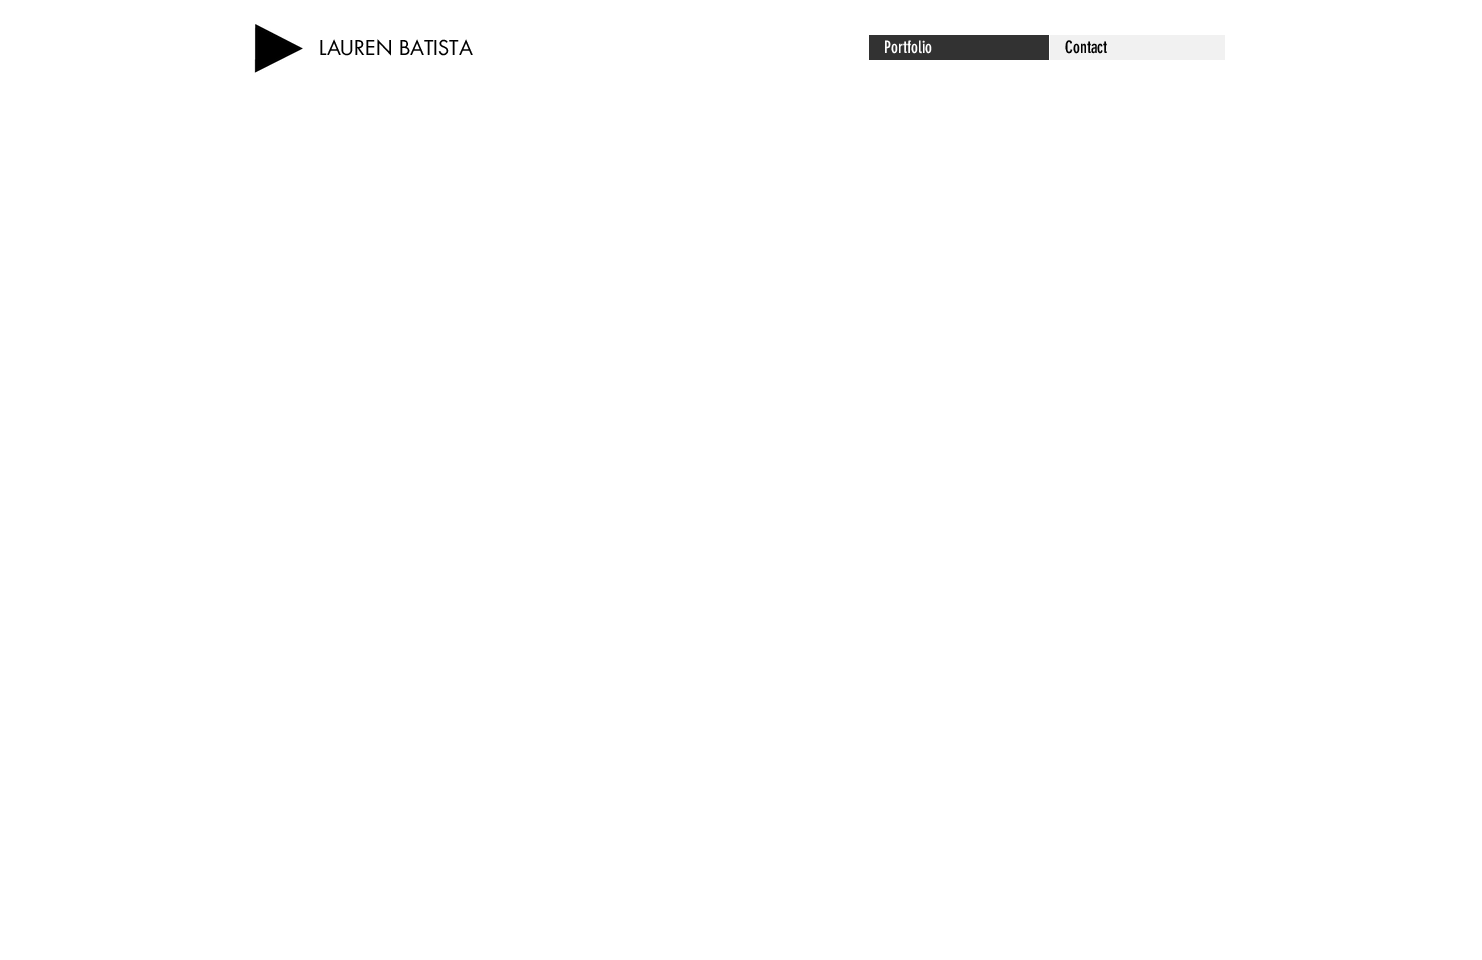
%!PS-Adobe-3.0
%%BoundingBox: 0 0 1482 960
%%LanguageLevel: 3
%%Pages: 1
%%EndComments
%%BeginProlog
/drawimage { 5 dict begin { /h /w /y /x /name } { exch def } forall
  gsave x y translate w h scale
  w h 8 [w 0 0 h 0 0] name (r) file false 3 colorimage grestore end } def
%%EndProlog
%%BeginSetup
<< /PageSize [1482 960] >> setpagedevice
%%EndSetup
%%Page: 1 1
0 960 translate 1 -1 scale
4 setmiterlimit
1 setgray
0 0 1482 960 rectfill
(images/1.raw) 254 24 49 49 drawimage
0.945 setgray
1050 35 175 25 rectfill
0.196 setgray
869 35 180 25 rectfill
/futura-Regular [20 0 0 -20 0 0] selectfont
0 setgray
319 55 moveto (LAUREN BATISTA) show
/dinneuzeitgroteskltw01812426-Regular [17 0 0 -17 0 0] selectfont
1 setgray
884 53 moveto (Portfolio) show
0 setgray
1065 53 moveto (Contact) show
showpage
%%EOF
